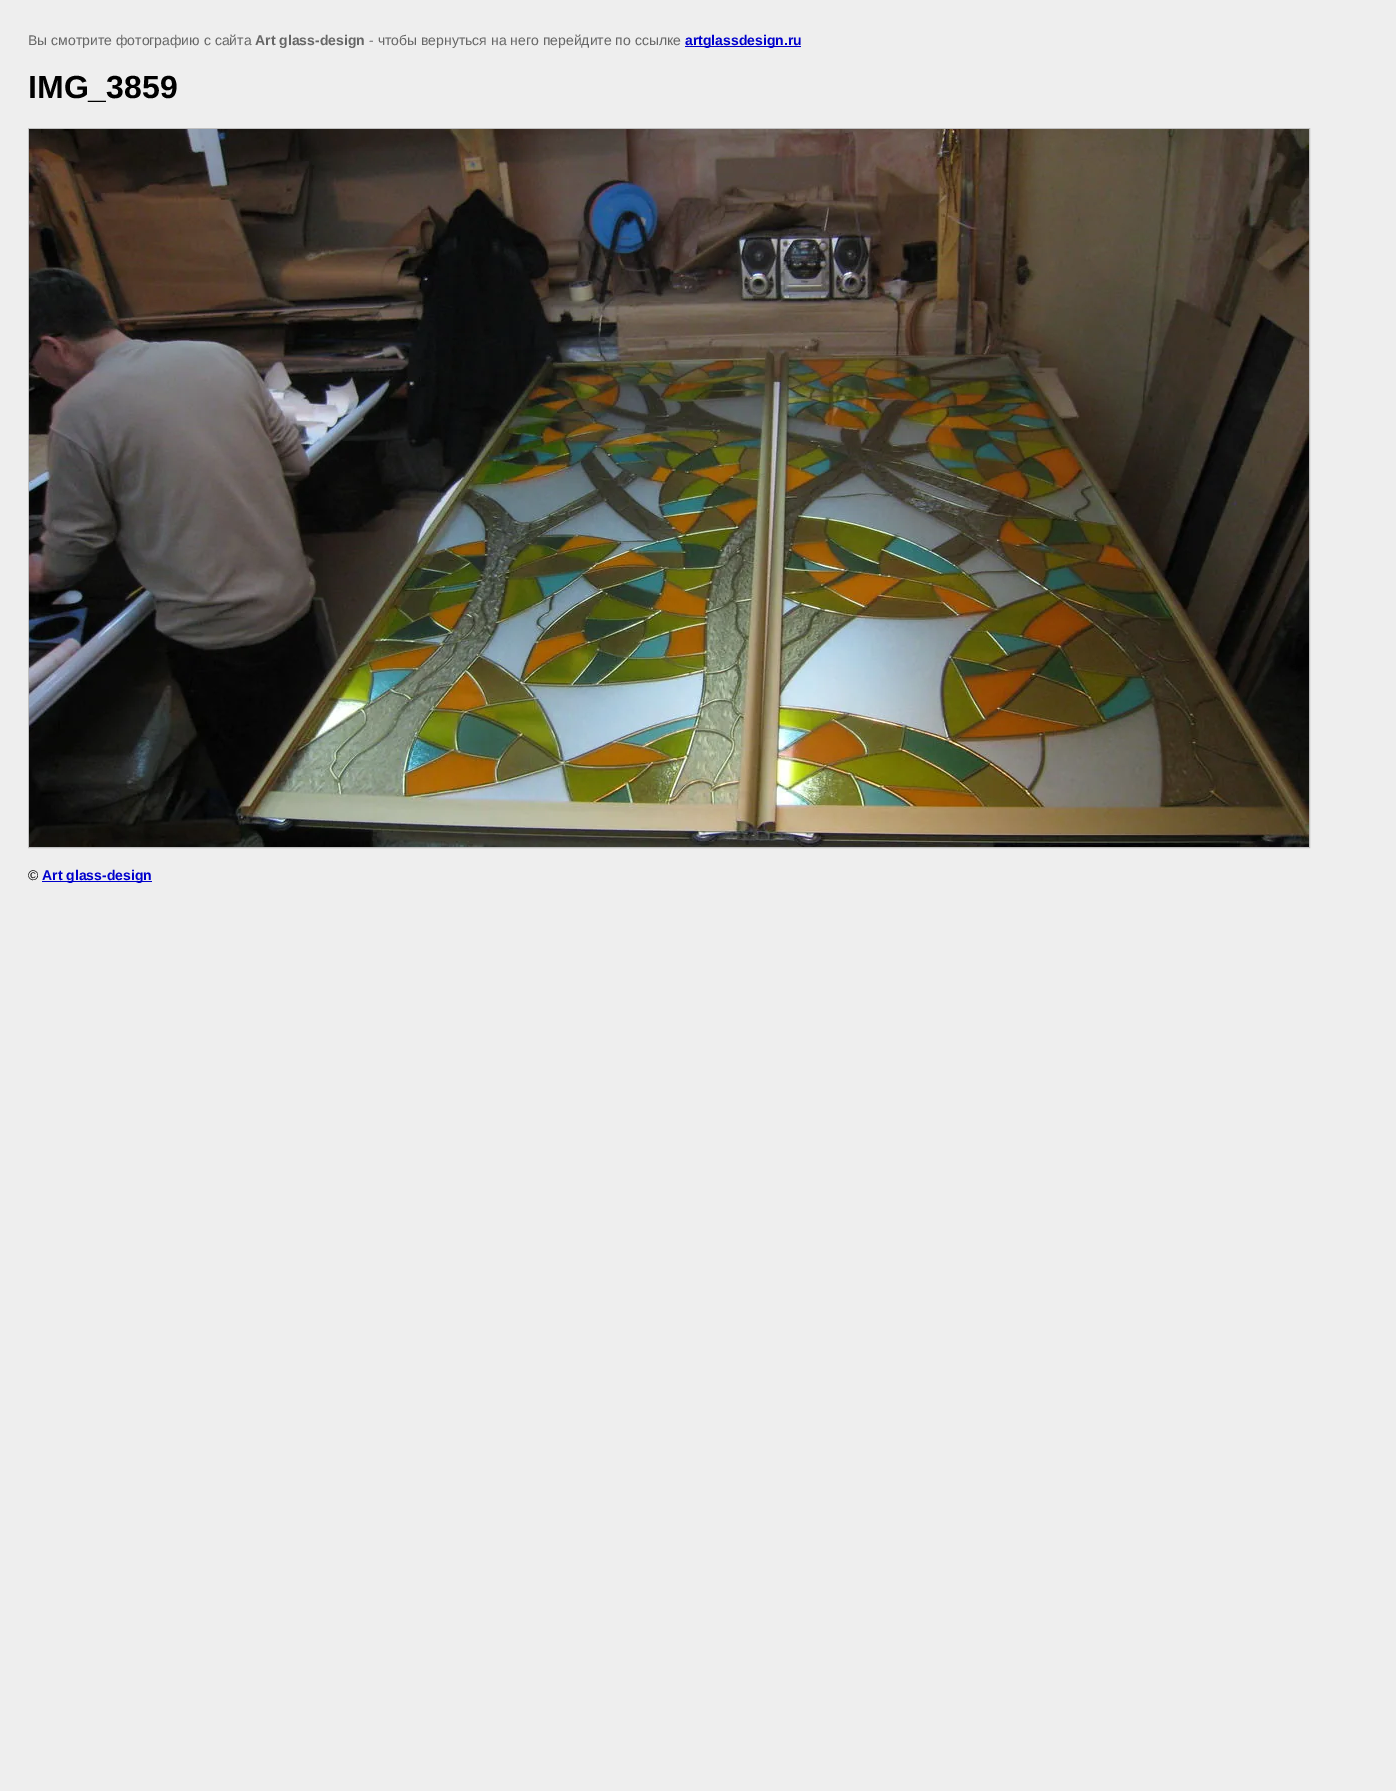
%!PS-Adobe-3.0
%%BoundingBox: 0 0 1396 1791
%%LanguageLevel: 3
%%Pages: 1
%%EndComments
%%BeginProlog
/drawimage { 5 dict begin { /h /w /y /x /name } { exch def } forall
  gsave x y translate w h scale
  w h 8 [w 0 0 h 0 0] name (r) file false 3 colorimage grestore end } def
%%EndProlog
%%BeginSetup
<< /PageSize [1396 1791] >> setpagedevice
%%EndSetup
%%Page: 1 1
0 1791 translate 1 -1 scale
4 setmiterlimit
0.933 setgray
0 0 1396 1791 rectfill
0 0 0.8 setrgbcolor
685 46 116 1 rectfill
0.753 setgray
28.5 128.5 1281 719 rectstroke
(images/1.raw) 29 129 1280 718 drawimage
0 0 0.8 setrgbcolor
42 881 110 1 rectfill
/LiberationSans-Regular [14 0 0 -14 0 0] selectfont
0.4 setgray
28 45 moveto (Вы смотрите фотографию с сайта) show
/LiberationSans-Bold [14 0 0 -14 0 0] selectfont
255 45 moveto (Art glass-design) show
/LiberationSans-Regular [14 0 0 -14 0 0] selectfont
369 45 moveto (- чтобы вернуться на него перейдите по ссылке) show
/LiberationSans-Bold [14 0 0 -14 0 0] selectfont
0 0 0.8 setrgbcolor
685 45 moveto (artglassdesign.ru) show
/LiberationSans-Bold [32 0 0 -32 0 0] selectfont
0 setgray
28 98 moveto (IMG_3859) show
/LiberationSans-Regular [14 0 0 -14 0 0] selectfont
28 880 moveto (©) show
/LiberationSans-Bold [14 0 0 -14 0 0] selectfont
0 0 0.8 setrgbcolor
42 880 moveto (Art glass-design) show
showpage
%%EOF
